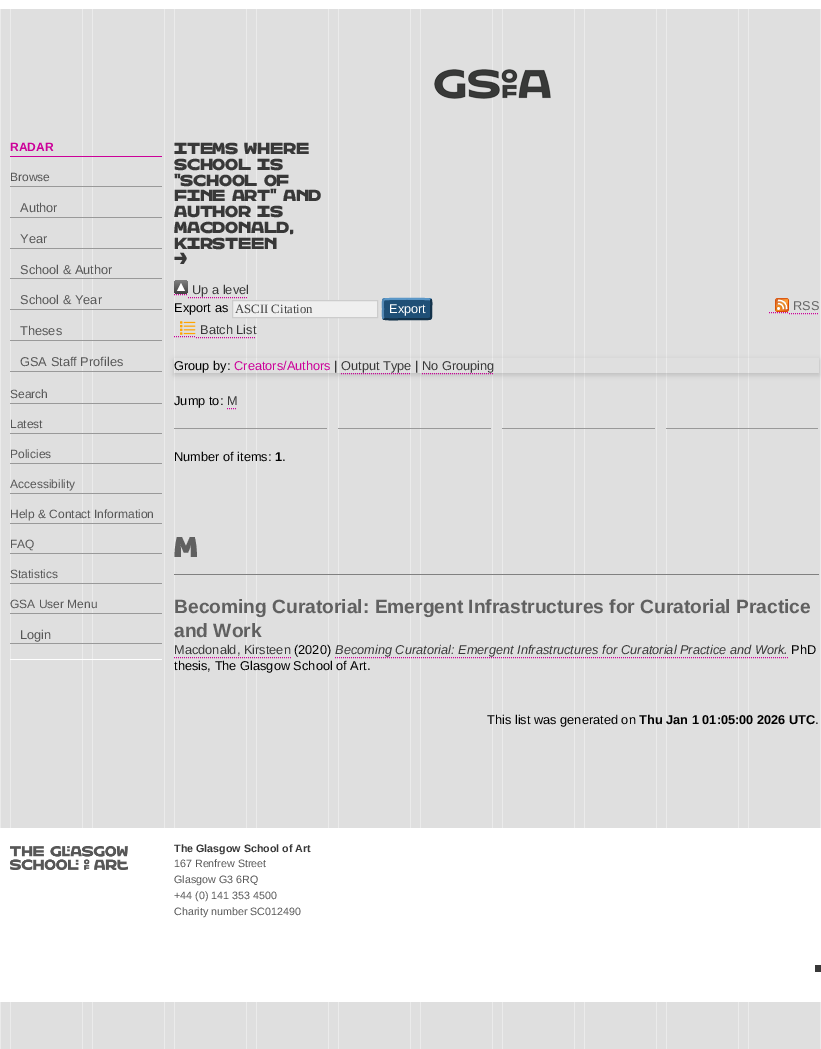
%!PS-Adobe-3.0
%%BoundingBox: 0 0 821 1049
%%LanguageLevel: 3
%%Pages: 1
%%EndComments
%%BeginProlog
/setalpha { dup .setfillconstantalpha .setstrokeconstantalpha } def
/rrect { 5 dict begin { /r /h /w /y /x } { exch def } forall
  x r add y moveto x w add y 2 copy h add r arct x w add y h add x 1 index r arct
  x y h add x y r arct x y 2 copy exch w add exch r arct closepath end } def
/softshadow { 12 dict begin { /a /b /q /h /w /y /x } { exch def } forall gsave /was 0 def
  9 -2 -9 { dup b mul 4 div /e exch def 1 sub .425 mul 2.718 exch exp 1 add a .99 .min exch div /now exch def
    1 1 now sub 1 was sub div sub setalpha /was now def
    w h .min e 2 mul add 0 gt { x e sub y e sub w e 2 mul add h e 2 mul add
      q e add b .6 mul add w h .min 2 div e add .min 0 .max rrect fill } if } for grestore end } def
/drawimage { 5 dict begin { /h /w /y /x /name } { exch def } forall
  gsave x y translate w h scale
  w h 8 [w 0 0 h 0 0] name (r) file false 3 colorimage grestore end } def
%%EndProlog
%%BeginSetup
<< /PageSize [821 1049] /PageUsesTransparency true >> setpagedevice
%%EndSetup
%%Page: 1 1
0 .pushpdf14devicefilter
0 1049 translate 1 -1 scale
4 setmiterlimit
1 setgray
0 0 821 1049 rectfill
(images/1.raw) 0 9 821 1040 drawimage
(images/2.raw) 434 69 117 30 drawimage
10 659 152 1 rectfill
0.8 0 0.6 setrgbcolor
10 156 152 1 rectfill
0.6 setgray
10 186 152 1 rectfill
10 217 152 1 rectfill
10 248 152 1 rectfill
10 278 152 1 rectfill
10 309 152 1 rectfill
10 340 152 1 rectfill
10 371 152 1 rectfill
10 403 152 1 rectfill
10 433 152 1 rectfill
10 463 152 1 rectfill
10 493 152 1 rectfill
10 523 152 1 rectfill
10 553 152 1 rectfill
10 583 152 1 rectfill
10 613 152 1 rectfill
10 643 152 1 rectfill
(images/3.raw) 174 280 14 14 drawimage
0.8 0 0.6 setrgbcolor
[1 1] 0 setdash
newpath 174 294.5 moveto 188 294.5 lineto stroke
newpath 188 297.5 moveto 248 297.5 lineto stroke
0.937 setgray
newpath 232.5 300.5 moveto 377.5 300.5 lineto 377.5 317.5 lineto 232.5 317.5 lineto closepath gsave fill grestore
0.8 setgray
[] 0 setdash
stroke
0.122 0.31 0.463 setrgbcolor
382 298 50 22 3 rrect fill
0.357 0.592 0.78 setrgbcolor
2 setlinewidth
newpath 383.5 299.5 moveto 384.5 298.5 429.5 298.5 430.5 299.5 curveto stroke
0.075 0.196 0.29 setrgbcolor
newpath 430.5 299.5 moveto 432 301 431 307 431 309 curveto 431 320.5 433 319 421.5 319 curveto 407 319 lineto 404 319 385 320 383.5 318.5 curveto stroke
0.322 0.529 0.702 setrgbcolor
newpath 383.5 318.5 moveto 382.5 317 383 311 383 309 curveto 383 307 382.5 301 383.5 299.5 curveto stroke
(images/4.raw) 775 298 14 14 drawimage
0.8 0 0.6 setrgbcolor
1 setlinewidth
[1 1] 0 setdash
newpath 769 312.5 moveto 789 312.5 lineto 789 313.5 moveto 819 313.5 lineto stroke
(images/5.raw) 180 321 16 14 drawimage
newpath 174 336.5 moveto 196 336.5 lineto stroke
newpath 196 337.5 moveto 256 337.5 lineto stroke
gsave
newpath 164 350 moveto 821 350 lineto 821 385 lineto 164 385 lineto closepath 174 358 moveto 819 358 lineto 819 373 lineto 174 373 lineto closepath eoclip newpath
0.392 setgray
174 360 645 15 0 3 0.3 softshadow
grestore
newpath 341 373.5 moveto 411 373.5 lineto stroke
newpath 422 373.5 moveto 494 373.5 lineto stroke
(images/6.raw) 174 428 644 1 drawimage
newpath 227 408.5 moveto 237 408.5 lineto stroke
0.502 setgray
174 574 645 1 rectfill
0.8 0 0.6 setrgbcolor
newpath 174 657.5 moveto 291 657.5 lineto stroke
newpath 335 657.5 moveto 788 657.5 lineto stroke
1 setgray
0 828 821 174 rectfill
(images/7.raw) 10 846 118 24 drawimage
0.22 setgray
815 965 6 7 rectfill
/LiberationSans-Bold [12 0 0 -12 0 0] selectfont
0.8 0 0.6 setrgbcolor
10 151 moveto (RADAR) show
/LiberationSans-Regular [12 0 0 -12 0 0] selectfont
0.341 setgray
10 181 moveto (Browse) show
/LiberationSans-Regular [12.8 0 0 -12.8 0 0] selectfont
20 212 moveto (Author) show
20 243 moveto (Year) show
20 274 moveto (School & Author) show
20 304 moveto (School & Year) show
20 335 moveto (Theses) show
20 366 moveto (GSA Staff Profiles) show
/LiberationSans-Regular [12 0 0 -12 0 0] selectfont
10 398 moveto (Search) show
10 428 moveto (Latest) show
10 458 moveto (Policies) show
10 488 moveto (Accessibility) show
10 518 moveto (Help & Contact Information) show
10 548 moveto (FAQ) show
10 578 moveto (Statistics) show
10 608 moveto (GSA User Menu) show
/LiberationSans-Regular [12.8 0 0 -12.8 0 0] selectfont
20 639 moveto (Login) show
/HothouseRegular-Bold [12.8 0 0 -12.8 0 0] selectfont
0.22 setgray
174 154 moveto (ITEMS WHERE) show
174 170 moveto (SCHOOL IS) show
174 186 moveto ("SCHOOL OF) show
174 201 moveto (FINE ART" AND) show
174 217 moveto (AUTHOR IS) show
174 233 moveto (MACDONALD,) show
174 249 moveto (KIRSTEEN) show
174 264 moveto (>) show
/LiberationSans-Regular [12.8 0 0 -12.8 0 0] selectfont
192 294 moveto (Up a level) show
0 setgray
174 312 moveto (Export as) show
/LiberationSerif-Regular [12.75 0 0 -12.75 0 0] selectfont
0.267 setgray
235 313 moveto (ASCII Citation) show
/LiberationSans-Regular [12.75 0 0 -12.75 0 0] selectfont
1 setgray
389 313 moveto (Export) show
/LiberationSans-Regular [12.8 0 0 -12.8 0 0] selectfont
0.4 setgray
793 310 moveto (RSS) show
0.22 setgray
200 334 moveto (Batch List) show
0 setgray
174 370 moveto (Group by:) show
0.8 0 0.6 setrgbcolor
234 370 moveto (Creators/Authors) show
0 setgray
334 370 moveto (|) show
0.22 setgray
341 370 moveto (Output Type) show
0 setgray
415 370 moveto (|) show
0.22 setgray
422 370 moveto (No Grouping) show
0 setgray
174 405 moveto (Jump to:) show
0.22 setgray
227 405 moveto (M) show
0 setgray
174 461 moveto (Number of items:) show
/LiberationSans-Bold [12.8 0 0 -12.8 0 0] selectfont
275 461 moveto (1) show
/LiberationSans-Regular [12.8 0 0 -12.8 0 0] selectfont
282 461 moveto (.) show
/HothouseRegular-Bold [23 0 0 -23 0 0] selectfont
0.376 setgray
174 557 moveto (M) show
/LiberationSans-Bold [19.2 0 0 -19.2 0 0] selectfont
174 613 moveto (Becoming Curatorial: Emergent Infrastructures for Curatorial Practice) show
174 637 moveto (and Work) show
/LiberationSans-Regular [12.8 0 0 -12.8 0 0] selectfont
0.22 setgray
174 654 moveto (Macdonald, Kirsteen) show
0 setgray
294 654 moveto (\(2020\)) show
/LiberationSans-Italic [12.8 0 0 -12.8 0 0] selectfont
0.22 setgray
335 654 moveto (Becoming Curatorial: Emergent Infrastructures for Curatorial Practice and Work.) show
/LiberationSans-Regular [12.8 0 0 -12.8 0 0] selectfont
0 setgray
791 654 moveto (PhD) show
174 670 moveto (thesis, The Glasgow School of Art.) show
487 724 moveto (This list was generated on) show
/LiberationSans-Bold [12.8 0 0 -12.8 0 0] selectfont
639 724 moveto (Thu Jan 1 01:05:00 2026 UTC) show
/LiberationSans-Regular [12.8 0 0 -12.8 0 0] selectfont
815 724 moveto (.) show
/LiberationSans-Bold [10.7 0 0 -10.7 0 0] selectfont
0.22 setgray
174 852 moveto (The Glasgow School of Art) show
/LiberationSans-Regular [10.7 0 0 -10.7 0 0] selectfont
0.341 setgray
174 867 moveto (167 Renfrew Street) show
174 883 moveto (Glasgow G3 6RQ) show
174 899 moveto (+44 \(0\) 141 353 4500) show
174 915 moveto (Charity number SC012490) show
.poppdf14devicefilter showpage
%%EOF
